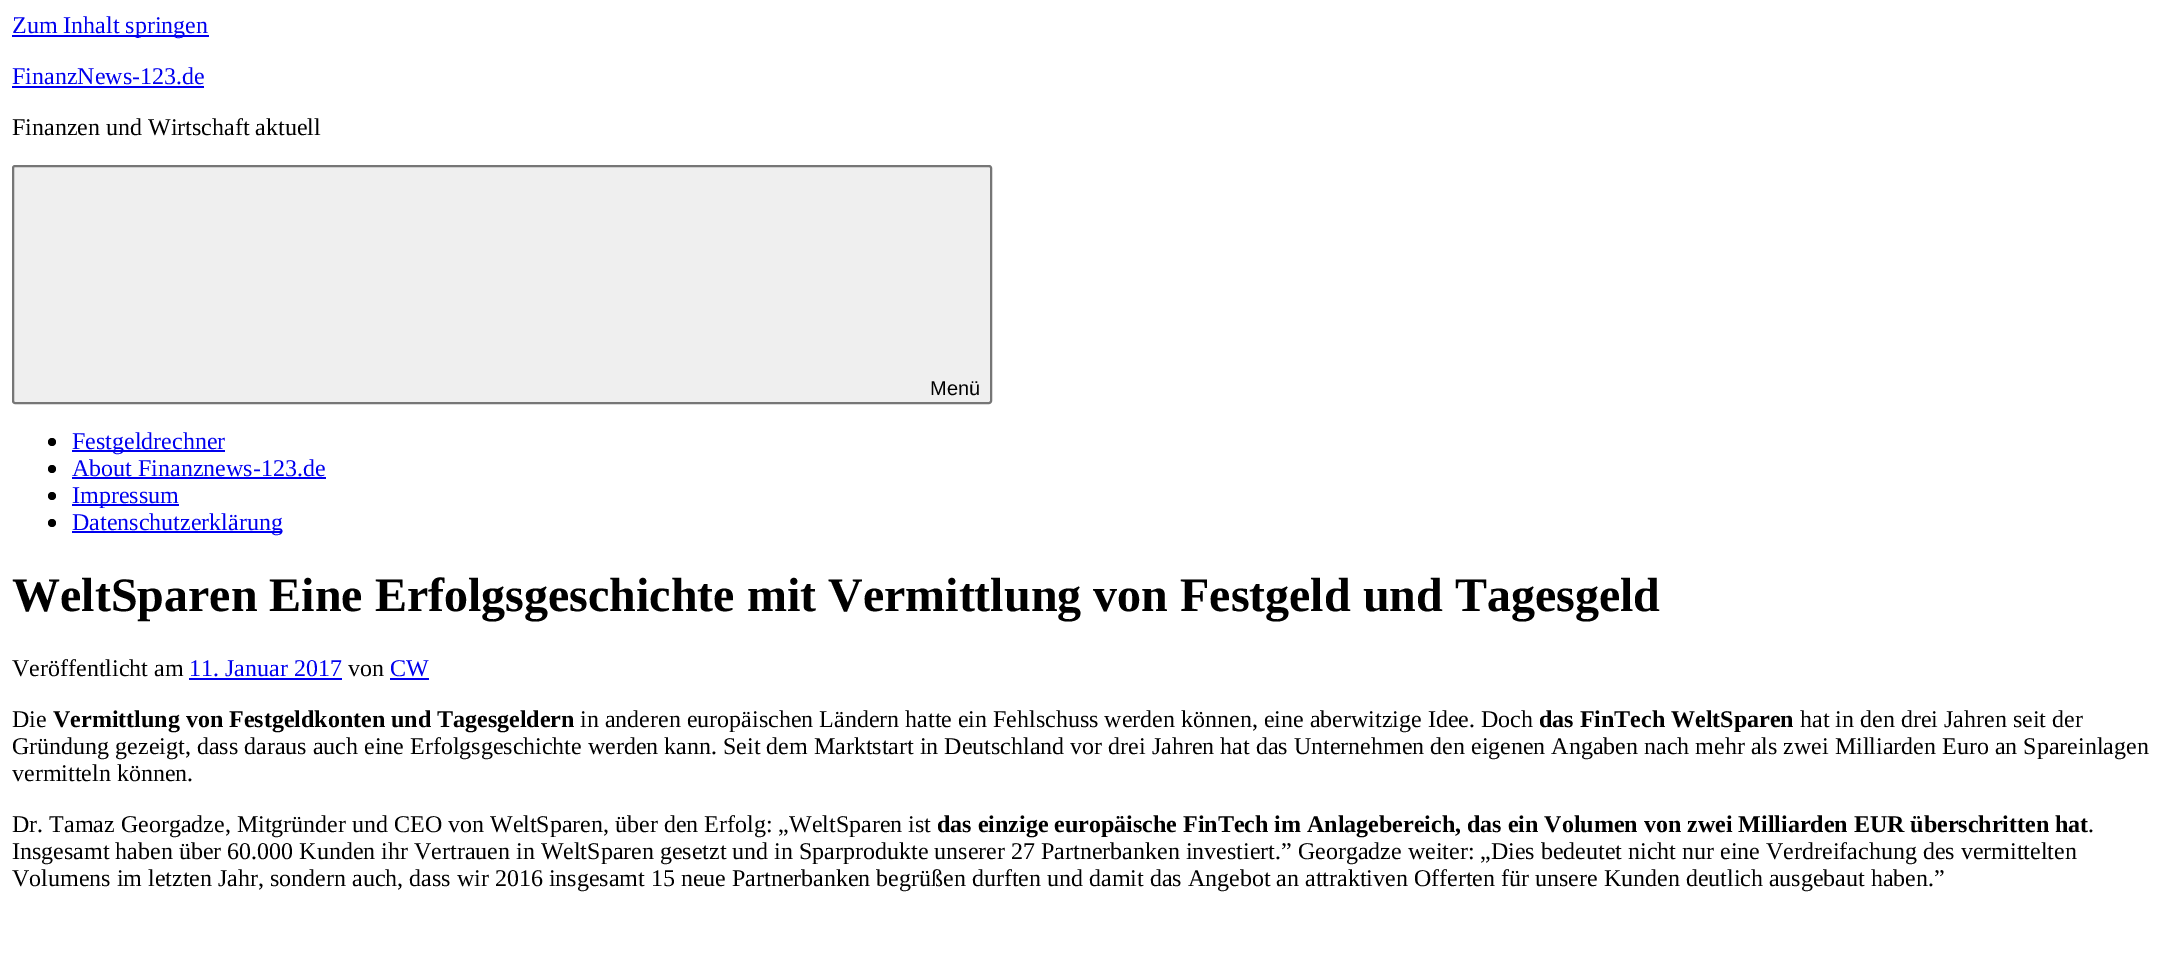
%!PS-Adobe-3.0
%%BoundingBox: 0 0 2162 975
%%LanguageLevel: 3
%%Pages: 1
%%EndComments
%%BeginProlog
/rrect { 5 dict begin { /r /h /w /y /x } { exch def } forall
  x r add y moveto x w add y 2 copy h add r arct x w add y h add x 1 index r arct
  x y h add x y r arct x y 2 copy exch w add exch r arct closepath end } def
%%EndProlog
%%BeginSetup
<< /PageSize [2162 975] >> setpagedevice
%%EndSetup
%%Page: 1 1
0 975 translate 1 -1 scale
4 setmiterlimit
1 setgray
0 0 2162 975 rectfill
0 0 0.933 setrgbcolor
12 35 197 2 rectfill
12 86 192 2 rectfill
0.937 setgray
13 166 978 237 2 rrect gsave fill grestore
0.463 setgray
2 setlinewidth
stroke
0 setgray
newpath 52 442 4 0 360 arc closepath fill
0 0 0.933 setrgbcolor
72 450 153 2 rectfill
0 setgray
newpath 52 469 4 0 360 arc closepath fill
0 0 0.933 setrgbcolor
72 477 254 2 rectfill
0 setgray
newpath 52 496 4 0 360 arc closepath fill
0 0 0.933 setrgbcolor
72 504 107 2 rectfill
0 setgray
newpath 52 523 4 0 360 arc closepath fill
0 0 0.933 setrgbcolor
72 531 210 2 rectfill
189 678 153 2 rectfill
390 678 39 2 rectfill
/LiberationSerif-Regular [24 0 0 -24 0 0] selectfont
12 33 moveto (Zum Inhalt springen) show
12 84 moveto (FinanzNews-123.de) show
0 setgray
12 135 moveto (Finanzen und Wirtschaft aktuell) show
/LiberationSans-Regular [20 0 0 -20 0 0] selectfont
930 395 moveto (Menü) show
/LiberationSerif-Regular [24 0 0 -24 0 0] selectfont
0 0 0.933 setrgbcolor
72 449 moveto (Festgeldrechner) show
72 476 moveto (About Finanznews-123.de) show
72 503 moveto (Impressum) show
72 530 moveto (Datenschutzerklärung) show
/LiberationSerif-Bold [48 0 0 -48 0 0] selectfont
0 setgray
12 611 moveto (WeltSparen Eine Erfolgsgeschichte mit Vermittlung von Festgeld und Tagesgeld) show
/LiberationSerif-Regular [24 0 0 -24 0 0] selectfont
12 676 moveto (Veröffentlicht am) show
0 0 0.933 setrgbcolor
189 676 moveto (11. Januar 2017) show
0 setgray
348 676 moveto (von) show
0 0 0.933 setrgbcolor
390 676 moveto (CW) show
0 setgray
12 727 moveto (Die) show
/LiberationSerif-Bold [24 0 0 -24 0 0] selectfont
53 727 moveto (Vermittlung von Festgeldkonten und Tagesgeldern) show
/LiberationSerif-Regular [24 0 0 -24 0 0] selectfont
580 727 moveto (in anderen europäischen Ländern hatte ein Fehlschuss werden können, eine aberwitzige Idee. Doch) show
/LiberationSerif-Bold [24 0 0 -24 0 0] selectfont
1539 727 moveto (das FinTech WeltSparen) show
/LiberationSerif-Regular [24 0 0 -24 0 0] selectfont
1800 727 moveto (hat in den drei Jahren seit der) show
12 754 moveto (Gründung gezeigt, dass daraus auch eine Erfolgsgeschichte werden kann. Seit dem Marktstart in Deutschland vor drei Jahren hat das Unternehmen den eigenen Angaben nach mehr als zwei Milliarden Euro an Spareinlagen) show
12 781 moveto (vermitteln können.) show
12 832 moveto (Dr. Tamaz Georgadze, Mitgründer und CEO von WeltSparen, über den Erfolg: „WeltSparen ist) show
/LiberationSerif-Bold [24 0 0 -24 0 0] selectfont
937 832 moveto (das einzige europäische FinTech im Anlagebereich, das ein Volumen von zwei Milliarden EUR überschritten hat) show
/LiberationSerif-Regular [24 0 0 -24 0 0] selectfont
2088 832 moveto (.) show
12 859 moveto (Insgesamt haben über 60.000 Kunden ihr Vertrauen in WeltSparen gesetzt und in Sparprodukte unserer 27 Partnerbanken investiert.” Georgadze weiter: „Dies bedeutet nicht nur eine Verdreifachung des vermittelten) show
12 886 moveto (Volumens im letzten Jahr, sondern auch, dass wir 2016 insgesamt 15 neue Partnerbanken begrüßen durften und damit das Angebot an attraktiven Offerten für unsere Kunden deutlich ausgebaut haben.”) show
showpage
%%EOF
